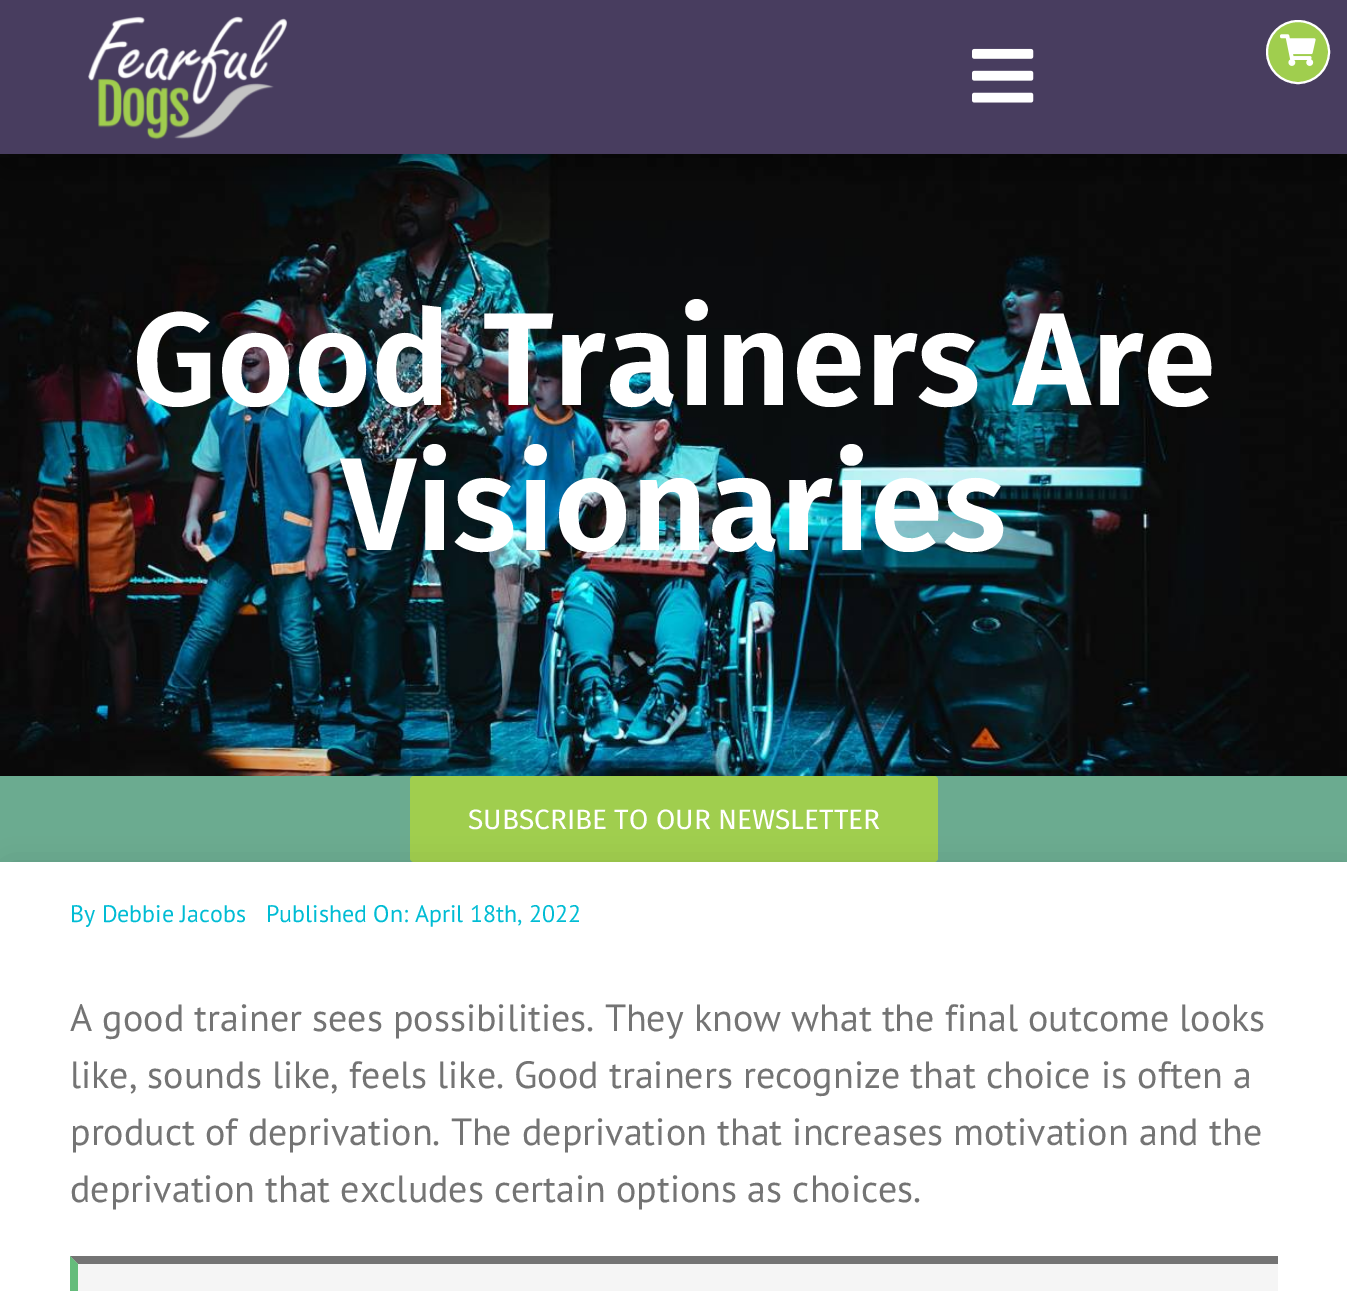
%!PS-Adobe-3.0
%%BoundingBox: 0 0 1347 1291
%%LanguageLevel: 3
%%Pages: 1
%%EndComments
%%BeginProlog
/setalpha { dup .setfillconstantalpha .setstrokeconstantalpha } def
/rrect { 5 dict begin { /r /h /w /y /x } { exch def } forall
  x r add y moveto x w add y 2 copy h add r arct x w add y h add x 1 index r arct
  x y h add x y r arct x y 2 copy exch w add exch r arct closepath end } def
/softshadow { 12 dict begin { /a /b /q /h /w /y /x } { exch def } forall gsave /was 0 def
  9 -2 -9 { dup b mul 4 div /e exch def 1 sub .425 mul 2.718 exch exp 1 add a .99 .min exch div /now exch def
    1 1 now sub 1 was sub div sub setalpha /was now def
    w h .min e 2 mul add 0 gt { x e sub y e sub w e 2 mul add h e 2 mul add
      q e add b .6 mul add w h .min 2 div e add .min 0 .max rrect fill } if } for grestore end } def
/drawimage { 5 dict begin { /h /w /y /x /name } { exch def } forall
  gsave x y translate w h scale
  w h 8 [w 0 0 h 0 0] name (r) file false 3 colorimage grestore end } def
%%EndProlog
%%BeginSetup
<< /PageSize [1347 1291] /PageUsesTransparency true >> setpagedevice
%%EndSetup
%%Page: 1 1
0 .pushpdf14devicefilter
0 1291 translate 1 -1 scale
4 setmiterlimit
1 setgray
0 0 1347 1291 rectfill
(images/4.raw) 0 154 1347 622 drawimage
0 setgray
0 10 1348 154 0 23 0.41 softshadow
0.282 0.239 0.373 setrgbcolor
0 0 1347 154 rectfill
(images/1.raw) 88 16 200 124 drawimage
(images/2.raw) 972 48 62 55 drawimage
0.627 0.808 0.306 setrgbcolor
newpath 1298 52 31 0 360 arc closepath gsave fill grestore
1 setgray
2 setlinewidth
stroke
(images/3.raw) 1280 34 36 32 drawimage
0.42 0.671 0.565 setrgbcolor
0 776 1347 86 rectfill
0.627 0.808 0.306 setrgbcolor
410 776 528 86 4 rrect fill
0 setgray
10 872 1336 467 0 16 0.18 softshadow
1 setgray
0 862 1347 429 rectfill
0.961 setgray
70 1256 1208 35 rectfill
0.455 setgray
newpath 70 1256 moveto 1278 1256 lineto 1278 1264 lineto 78 1264 lineto closepath fill
0.396 0.737 0.482 setrgbcolor
newpath 70 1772 moveto 70 1256 lineto 78 1264 lineto 78 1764 lineto closepath fill
/FiraSans-SemiBold [132.25 0 0 -132.25 0 0] selectfont
1 setgray
132 405 moveto (Good Trainers Are) show
341 550 moveto (Visionaries) show
/FiraSans-Regular [28 0 0 -28 0 0] selectfont
468 829 moveto (SUBSCRIBE TO OUR NEWSLETTER) show
/PTSans-Regular [24 0 0 -24 0 0] selectfont
0 0.737 0.831 setrgbcolor
70 922 moveto (By Debbie Jacobs) show
266 922 moveto (Published On: April 18th, 2022) show
/PTSans-Regular [38 0 0 -38 0 0] selectfont
0.455 setgray
70 1031 moveto (A good trainer sees possibilities. They know what the final outcome looks) show
70 1088 moveto (like, sounds like, feels like. Good trainers recognize that choice is often a) show
70 1145 moveto (product of deprivation. The deprivation that increases motivation and the) show
70 1202 moveto (deprivation that excludes certain options as choices.) show
.poppdf14devicefilter showpage
%%EOF
